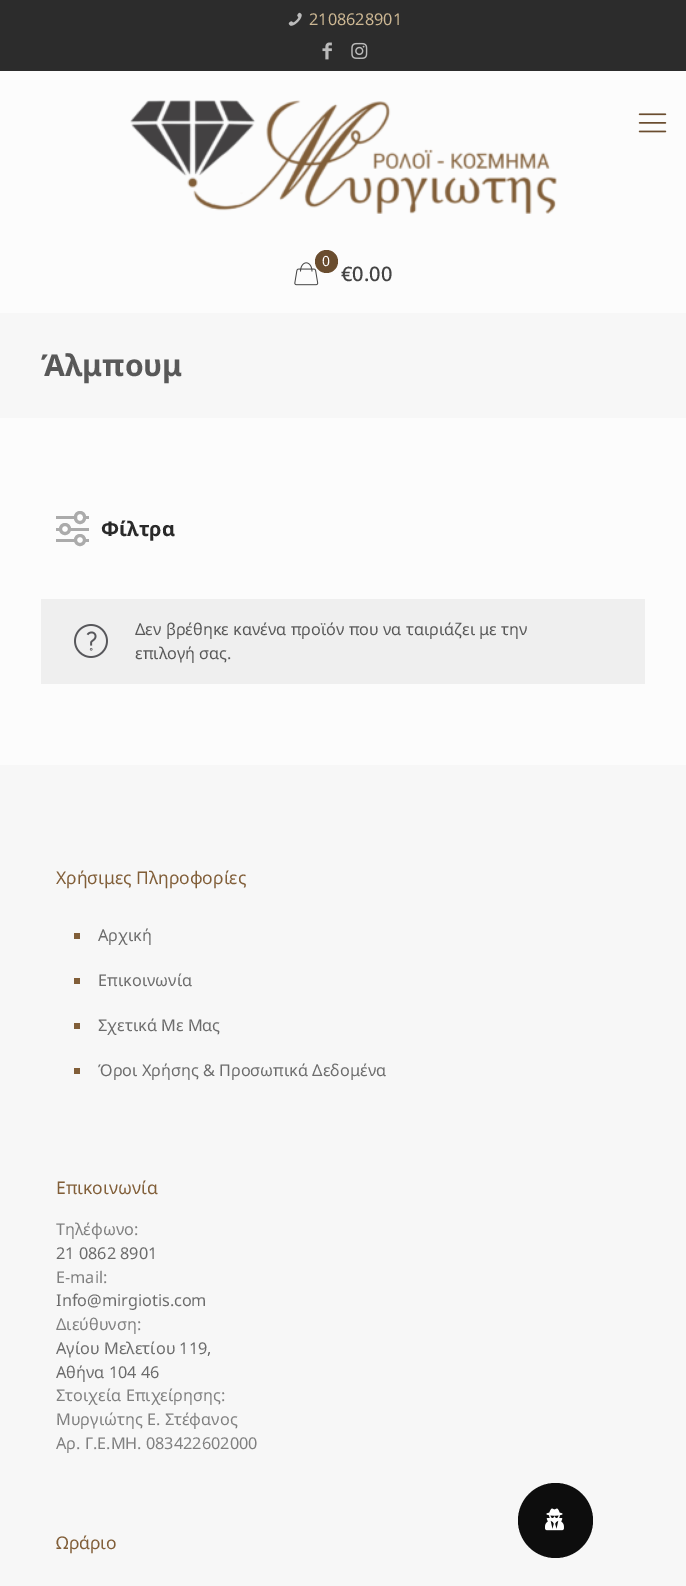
%!PS-Adobe-3.0
%%BoundingBox: 0 0 686 1586
%%LanguageLevel: 3
%%Pages: 1
%%EndComments
%%BeginProlog
/rrect { 5 dict begin { /r /h /w /y /x } { exch def } forall
  x r add y moveto x w add y 2 copy h add r arct x w add y h add x 1 index r arct
  x y h add x y r arct x y 2 copy exch w add exch r arct closepath end } def
/drawimage { 5 dict begin { /h /w /y /x /name } { exch def } forall
  gsave x y translate w h scale
  w h 8 [w 0 0 h 0 0] name (r) file false 3 colorimage grestore end } def
%%EndProlog
%%BeginSetup
<< /PageSize [686 1586] >> setpagedevice
%%EndSetup
%%Page: 1 1
0 1586 translate 1 -1 scale
4 setmiterlimit
0.988 setgray
0 0 686 1586 rectfill
0.173 setgray
0 0 686 71 rectfill
(images/1.raw) 288 12 14 14 drawimage
(images/2.raw) 322 42 10 18 drawimage
(images/3.raw) 351 42 17 17 drawimage
(images/4.raw) 130 100 427 114 drawimage
(images/5.raw) 638 113 29 20 drawimage
(images/6.raw) 294 262 25 24 drawimage
0.416 0.302 0.184 setrgbcolor
newpath 326.5 261.5 11.5 0 360 arc closepath fill
0.969 setgray
0 313 686 105 rectfill
0.671 setgray
56 528 33 3 rectfill
1 setgray
newpath 65 529 4.5 0 360 arc closepath gsave fill grestore
0.671 setgray
3 setlinewidth
stroke
56 516 33 3 rectfill
1 setgray
75.5 512.5 9 10 4.5 rrect gsave fill grestore
0.671 setgray
stroke
56 539 33 3 rectfill
1 setgray
newpath 80 540 4.5 0 360 arc closepath gsave fill grestore
0.671 setgray
stroke
0.937 setgray
41 599 604 85 rectfill
(images/7.raw) 74 624 34 34 drawimage
0.969 setgray
0 765 686 821 rectfill
0.506 0.369 0.22 setrgbcolor
74 933 6 6 rectfill
74 978 6 6 rectfill
74 1023 6 6 rectfill
74 1068 6 6 rectfill
0.051 setgray
newpath 555.5 1520.5 37.5 0 360 arc closepath fill
(images/8.raw) 545 1508 19 23 drawimage
/NotoSans-Regular [16.25 0 0 -16.25 0 0] selectfont
0.8 0.718 0.576 setrgbcolor
309 25 moveto (2108628901) show
/NotoSans-Regular [14 0 0 -14 0 0] selectfont
1 setgray
322 266 moveto (0) show
/NotoSans-Medium [20 0 0 -20 0 0] selectfont
0.267 setgray
341 281 moveto (€0.00) show
/NotoSans-Bold [30 0 0 -30 0 0] selectfont
0.345 setgray
41 376 moveto (Άλμπουμ) show
/NotoSans-Bold [20 0 0 -20 0 0] selectfont
0.165 setgray
101 536 moveto (Φίλτρα) show
/NotoSans-Regular [16.25 0 0 -16.25 0 0] selectfont
0.345 setgray
135 635 moveto (Δεν βρέθηκε κανένα προϊόν που να ταιριάζει με την) show
135 659 moveto (επιλογή σας.) show
/NotoSans-Regular [17.5 0 0 -17.5 0 0] selectfont
0.506 0.369 0.22 setrgbcolor
56 884 moveto (Χρήσιμες Πληροφορίες) show
/NotoSans-Regular [16.25 0 0 -16.25 0 0] selectfont
0.424 setgray
98 941 moveto (Αρχική) show
98 986 moveto (Επικοινωνία) show
98 1031 moveto (Σχετικά Με Μας) show
98 1076 moveto (Όροι Χρήσης & Προσωπικά Δεδομένα) show
/NotoSans-Regular [17.5 0 0 -17.5 0 0] selectfont
0.506 0.369 0.22 setrgbcolor
56 1194 moveto (Επικοινωνία) show
/NotoSans-Regular [16.25 0 0 -16.25 0 0] selectfont
0.502 setgray
56 1235 moveto (Τηλέφωνο:) show
0.424 setgray
56 1259 moveto (21 0862 8901) show
0.502 setgray
56 1283 moveto (E-mail:) show
0.424 setgray
56 1306 moveto (Info@mirgiotis.com) show
0.502 setgray
56 1330 moveto (Διεύθυνση:) show
0.424 setgray
56 1354 moveto (Αγίου Μελετίου 119,) show
56 1378 moveto (Αθήνα 104 46) show
0.502 setgray
56 1401 moveto (Στοιχεία Επιχείρησης:) show
56 1425 moveto (Μυργιώτης Ε. Στέφανος) show
56 1449 moveto (Αρ. Γ.Ε.ΜΗ. 083422602000) show
/NotoSans-Regular [17.5 0 0 -17.5 0 0] selectfont
0.506 0.369 0.22 setrgbcolor
56 1549 moveto (Ωράριο) show
showpage
%%EOF
